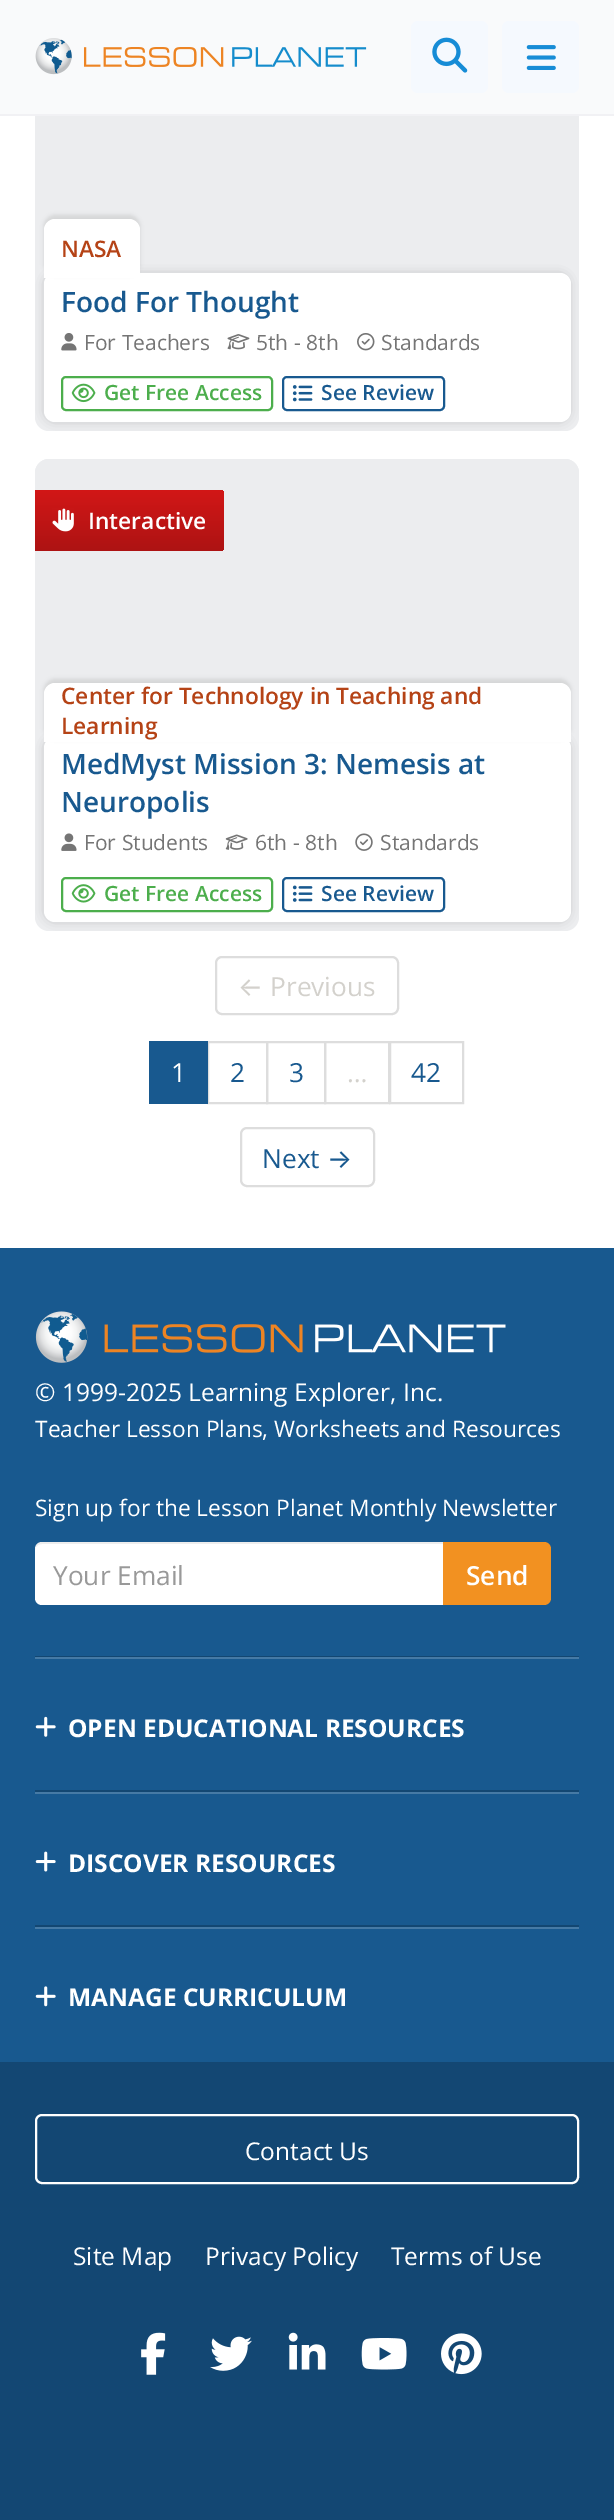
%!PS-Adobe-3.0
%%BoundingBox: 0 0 614 2520
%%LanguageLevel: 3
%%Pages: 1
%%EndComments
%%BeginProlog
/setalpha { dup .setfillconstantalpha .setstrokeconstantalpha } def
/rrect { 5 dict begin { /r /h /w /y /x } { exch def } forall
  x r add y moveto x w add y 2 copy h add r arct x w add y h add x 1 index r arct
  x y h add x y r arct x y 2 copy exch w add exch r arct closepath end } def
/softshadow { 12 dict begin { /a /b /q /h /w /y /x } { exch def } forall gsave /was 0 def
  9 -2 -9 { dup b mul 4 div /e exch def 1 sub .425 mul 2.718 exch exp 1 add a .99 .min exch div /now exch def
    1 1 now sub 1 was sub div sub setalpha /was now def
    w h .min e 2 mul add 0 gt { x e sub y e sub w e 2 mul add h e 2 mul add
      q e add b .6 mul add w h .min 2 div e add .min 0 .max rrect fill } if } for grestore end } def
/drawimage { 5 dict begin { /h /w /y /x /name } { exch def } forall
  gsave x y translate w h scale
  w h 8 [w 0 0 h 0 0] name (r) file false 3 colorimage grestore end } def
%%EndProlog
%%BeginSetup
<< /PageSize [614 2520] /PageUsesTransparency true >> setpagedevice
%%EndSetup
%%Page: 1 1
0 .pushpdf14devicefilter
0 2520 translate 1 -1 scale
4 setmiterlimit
1 setgray
0 0 614 2520 rectfill
0.925 0.929 0.937 setrgbcolor
35 -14 544 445 14 rrect fill
0.945 0.945 0.957 setrgbcolor
0 114 614 2 rectfill
0.976 0.98 0.984 setrgbcolor
0 0 614 114 rectfill
(images/1.raw) 35 38 332 37 drawimage
0.961 0.976 0.996 setrgbcolor
411 21 77 72 7 rrect fill
(images/2.raw) 432 37 36 36 drawimage
502 21 77 72 7 rrect fill
(images/3.raw) 526 45 30 25 drawimage
0 setgray
49 278 516 139 5 6 0.4 softshadow
1 setgray
44 273 527 149 11 rrect fill
0 setgray
44 215 96 60 11 2 0.1 softshadow
1 setgray
newpath 55 219 moveto 129 219 lineto 135 219 140 224 140 230 curveto 140 278 lineto 44 278 lineto 44 230 lineto 44 224 49 219 55 219 curveto closepath fill
(images/4.raw) 61 333 16 18 drawimage
(images/5.raw) 227 334 23 16 drawimage
(images/6.raw) 357 333 18 18 drawimage
0.298 0.682 0.298 setrgbcolor
2 setlinewidth
62 377 210 33 4 rrect stroke
(images/7.raw) 71 383 25 20 drawimage
0.094 0.349 0.561 setrgbcolor
283 377 161 33 4 rrect stroke
(images/8.raw) 292 385 21 17 drawimage
0.925 0.929 0.937 setrgbcolor
35 459 544 472 14 rrect fill
newpath 49 459 moveto 565 459 lineto 572.5 459 579 465.5 579 473 curveto 579 844 lineto 35 844 lineto 35 473 lineto 35 465.5 41.5 459 49 459 curveto closepath fill
gsave newpath 35 490 moveto 219 490 lineto 222 490 224 492 224 495 curveto 224 546 lineto 224 549 222 551 219 551 curveto 35 551 lineto closepath clip newpath
<< /ShadingType 2 /ColorSpace /DeviceRGB /Coords [130 490 130 551] /Extend [true true] /Function << /FunctionType 2 /Domain [0 1] /C0 [0.824 0.09 0.09] /C1 [0.678 0.075 0.075] /N 1 >> >> shfill grestore
(images/9.raw) 52 508 22 24 drawimage
0 setgray
49 742 516 175 5 6 0.4 softshadow
1 setgray
44 737 527 185 11 rrect fill
0 setgray
44 679 527 60 11 2 0.1 softshadow
1 setgray
newpath 55 683 moveto 560 683 lineto 566 683 571 688 571 694 curveto 571 742 lineto 44 742 lineto 44 694 lineto 44 688 49 683 55 683 curveto closepath fill
(images/10.raw) 61 833 16 18 drawimage
(images/11.raw) 225 834 23 16 drawimage
(images/12.raw) 355 833 18 18 drawimage
0.298 0.682 0.298 setrgbcolor
62 878 210 33 4 rrect stroke
(images/13.raw) 71 884 25 19 drawimage
0.094 0.349 0.561 setrgbcolor
283 878 161 33 4 rrect stroke
(images/14.raw) 292 885 21 17 drawimage
0.867 setgray
216 957 182 57 6 rrect stroke
208 1042 59 61 rectstroke
0.094 0.349 0.561 setrgbcolor
149 1041 59 63 rectfill
0.867 setgray
267 1042 58 61 rectstroke
325 1042 64 61 rectstroke
390 1042 73 61 rectstroke
241 1128 133 58 6 rrect stroke
0.094 0.349 0.561 setrgbcolor
0 1248 614 814 rectfill
(images/15.raw) 35 1311 471 52 drawimage
1 setgray
newpath 42 1542 moveto 443 1542 lineto 443 1605 lineto 42 1605 lineto 38 1605 35 1602 35 1598 curveto 35 1549 lineto 35 1545 38 1542 42 1542 curveto closepath fill
0.07 setalpha
0 setgray
newpath 42 1544 moveto 443 1544 lineto 443 1542 lineto 42 1542 lineto 37 1542 35 1546 35 1550 curveto 35 1547 38 1544 42 1544 curveto closepath fill
1 setalpha
0.949 0.569 0.129 setrgbcolor
newpath 443 1542 moveto 544 1542 lineto 548 1542 551 1545 551 1549 curveto 551 1598 lineto 551 1602 548 1605 544 1605 curveto 443 1605 lineto closepath fill
0.075 0.278 0.447 setrgbcolor
35 1656 544 1 rectfill
0.275 0.478 0.647 setrgbcolor
35 1657 544 2 rectfill
(images/16.raw) 35 1716 21 21 drawimage
0.075 0.278 0.447 setrgbcolor
35 1790 544 2 rectfill
0.275 0.478 0.647 setrgbcolor
35 1792 544 2 rectfill
(images/17.raw) 35 1851 21 21 drawimage
0.075 0.278 0.447 setrgbcolor
35 1925 544 2 rectfill
0.275 0.478 0.647 setrgbcolor
35 1927 544 2 rectfill
(images/18.raw) 35 1986 21 21 drawimage
0.075 0.278 0.451 setrgbcolor
0 2062 614 458 rectfill
1 setgray
36 2115 542 68 6 rrect stroke
(images/19.raw) 141 2332 25 43 drawimage
(images/20.raw) 210 2336 42 35 drawimage
(images/21.raw) 288 2332 38 38 drawimage
(images/22.raw) 361 2338 46 32 drawimage
(images/23.raw) 441 2333 41 42 drawimage
/OpenSans-SemiBold [22.75 0 0 -22.75 0 0] selectfont
0.71 0.263 0.086 setrgbcolor
61 257 moveto (NASA) show
/OpenSans-SemiBold [28 0 0 -28 0 0] selectfont
0.094 0.349 0.561 setrgbcolor
61 312 moveto (Food For Thought) show
/OpenSans-Regular [21 0 0 -21 0 0] selectfont
0.459 setgray
84 350 moveto (For Teachers) show
256 350 moveto (5th - 8th) show
381 350 moveto (Standards) show
/OpenSans-SemiBold [21 0 0 -21 0 0] selectfont
0.298 0.682 0.298 setrgbcolor
104 400 moveto (Get Free Access) show
0.094 0.349 0.561 setrgbcolor
321 400 moveto (See Review) show
/OpenSans-SemiBold [22.75 0 0 -22.75 0 0] selectfont
1 setgray
88 529 moveto (Interactive) show
0.71 0.263 0.086 setrgbcolor
61 704 moveto (Center for Technology in Teaching and) show
61 734 moveto (Learning) show
/OpenSans-SemiBold [28 0 0 -28 0 0] selectfont
0.094 0.349 0.561 setrgbcolor
61 774 moveto (MedMyst Mission 3: Nemesis at) show
61 812 moveto (Neuropolis) show
/OpenSans-Regular [21 0 0 -21 0 0] selectfont
0.459 setgray
84 850 moveto (For Students) show
255 850 moveto (6th - 8th) show
380 850 moveto (Standards) show
/OpenSans-SemiBold [21 0 0 -21 0 0] selectfont
0.298 0.682 0.298 setrgbcolor
104 901 moveto (Get Free Access) show
0.094 0.349 0.561 setrgbcolor
321 901 moveto (See Review) show
/Inter-Regular [26.25 0 0 -26.25 0 0] selectfont
0.827 0.82 0.8 setrgbcolor
238 996 moveto (←) show
/OpenSans-Regular [26.25 0 0 -26.25 0 0] selectfont
270 996 moveto (Previous) show
1 setgray
171 1082 moveto (1) show
0.094 0.349 0.561 setrgbcolor
230 1082 moveto (2) show
289 1082 moveto (3) show
0.827 0.82 0.8 setrgbcolor
347 1082 moveto (…) show
0.094 0.349 0.561 setrgbcolor
411 1082 moveto (42) show
262 1168 moveto (Next) show
/Inter-Regular [26.25 0 0 -26.25 0 0] selectfont
327 1168 moveto (→) show
/OpenSans-Regular [24.5 0 0 -24.5 0 0] selectfont
1 setgray
35 1401 moveto (© 1999-2025 Learning Explorer, Inc.) show
/OpenSans-Regular [22.75 0 0 -22.75 0 0] selectfont
35 1437 moveto (Teacher Lesson Plans, Worksheets and Resources) show
35 1516 moveto (Sign up for the Lesson Planet Monthly Newsletter) show
/OpenSans-Regular [26.25 0 0 -26.25 0 0] selectfont
0.6 setgray
53 1585 moveto (Your Email) show
/OpenSans-SemiBold [26.25 0 0 -26.25 0 0] selectfont
1 setgray
466 1585 moveto (Send) show
/OpenSans-Bold [24.5 0 0 -24.5 0 0] selectfont
68 1737 moveto (OPEN EDUCATIONAL RESOURCES) show
68 1872 moveto (DISCOVER RESOURCES) show
68 2006 moveto (MANAGE CURRICULUM) show
/OpenSans-Regular [24.5 0 0 -24.5 0 0] selectfont
245 2160 moveto (Contact Us) show
73 2265 moveto (Site Map) show
205 2265 moveto (Privacy Policy) show
391 2265 moveto (Terms of Use) show
.poppdf14devicefilter showpage
%%EOF
